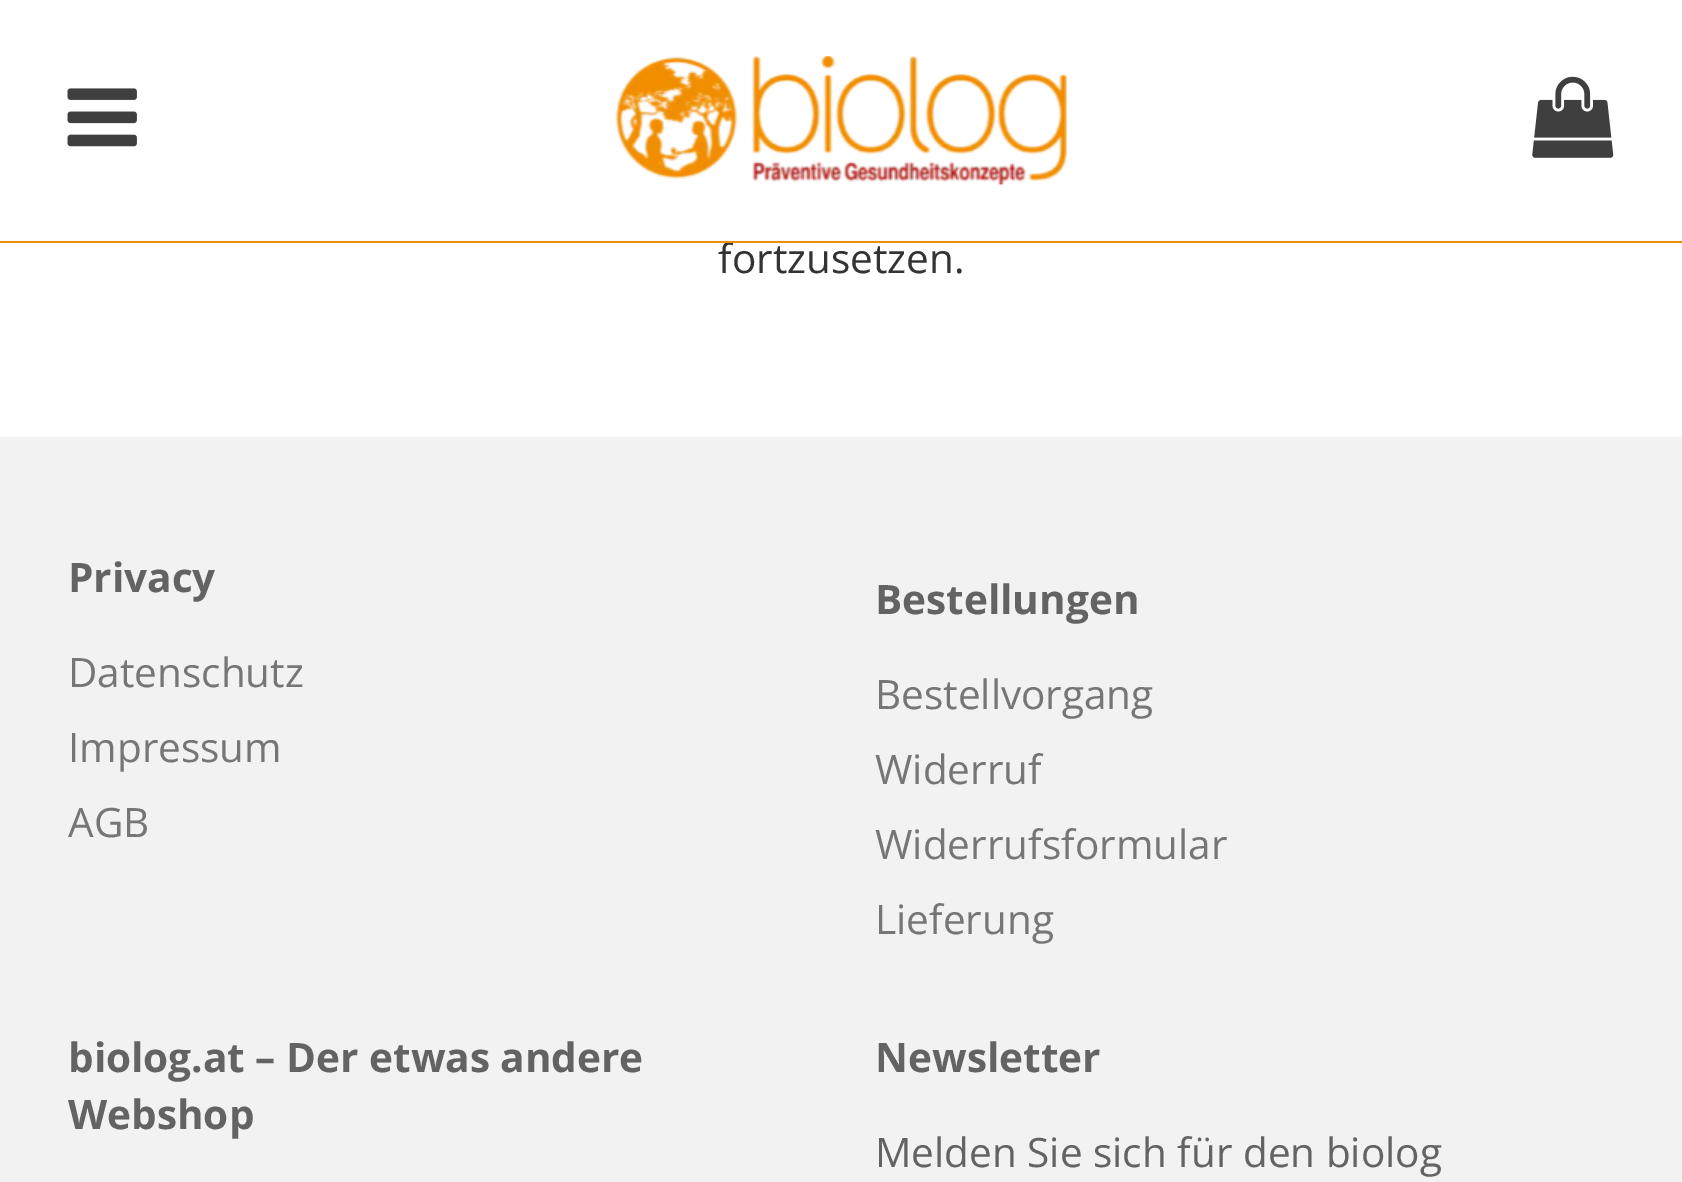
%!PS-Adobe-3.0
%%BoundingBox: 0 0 1682 1182
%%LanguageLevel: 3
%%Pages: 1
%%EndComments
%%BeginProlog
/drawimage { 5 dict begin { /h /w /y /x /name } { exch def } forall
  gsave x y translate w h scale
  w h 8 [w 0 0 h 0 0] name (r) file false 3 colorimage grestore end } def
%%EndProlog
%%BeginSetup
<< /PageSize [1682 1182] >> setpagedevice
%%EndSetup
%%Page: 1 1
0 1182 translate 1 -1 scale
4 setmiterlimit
1 setgray
0 0 1682 1182 rectfill
(images/1.raw) 67 88 70 59 drawimage
(images/2.raw) 615 56 452 129 drawimage
(images/3.raw) 1532 76 82 82 drawimage
0.949 setgray
0 437 1682 745 rectfill
/OpenSans-Regular [40.5 0 0 -40.5 0 0] selectfont
0.2 setgray
718 273 moveto (fortzusetzen.) show
0.945 0.557 0 setrgbcolor
0 241 1682 2 rectfill
/OpenSans-Bold [40.5 0 0 -40.5 0 0] selectfont
0.388 setgray
68 592 moveto (Privacy) show
/OpenSans-Regular [40.5 0 0 -40.5 0 0] selectfont
0.463 setgray
68 687 moveto (Datenschutz) show
68 762 moveto (Impressum) show
68 837 moveto (AGB) show
/OpenSans-Bold [40.5 0 0 -40.5 0 0] selectfont
0.388 setgray
875 614 moveto (Bestellungen) show
/OpenSans-Regular [40.5 0 0 -40.5 0 0] selectfont
0.463 setgray
875 709 moveto (Bestellvorgang) show
875 784 moveto (Widerruf) show
875 859 moveto (Widerrufsformular) show
875 934 moveto (Lieferung) show
/OpenSans-Bold [40.5 0 0 -40.5 0 0] selectfont
0.388 setgray
68 1072 moveto (biolog.at – Der etwas andere) show
68 1129 moveto (Webshop) show
875 1072 moveto (Newsletter) show
/OpenSans-Regular [40.5 0 0 -40.5 0 0] selectfont
875 1167 moveto (Melden Sie sich für den biolog) show
showpage
%%EOF
